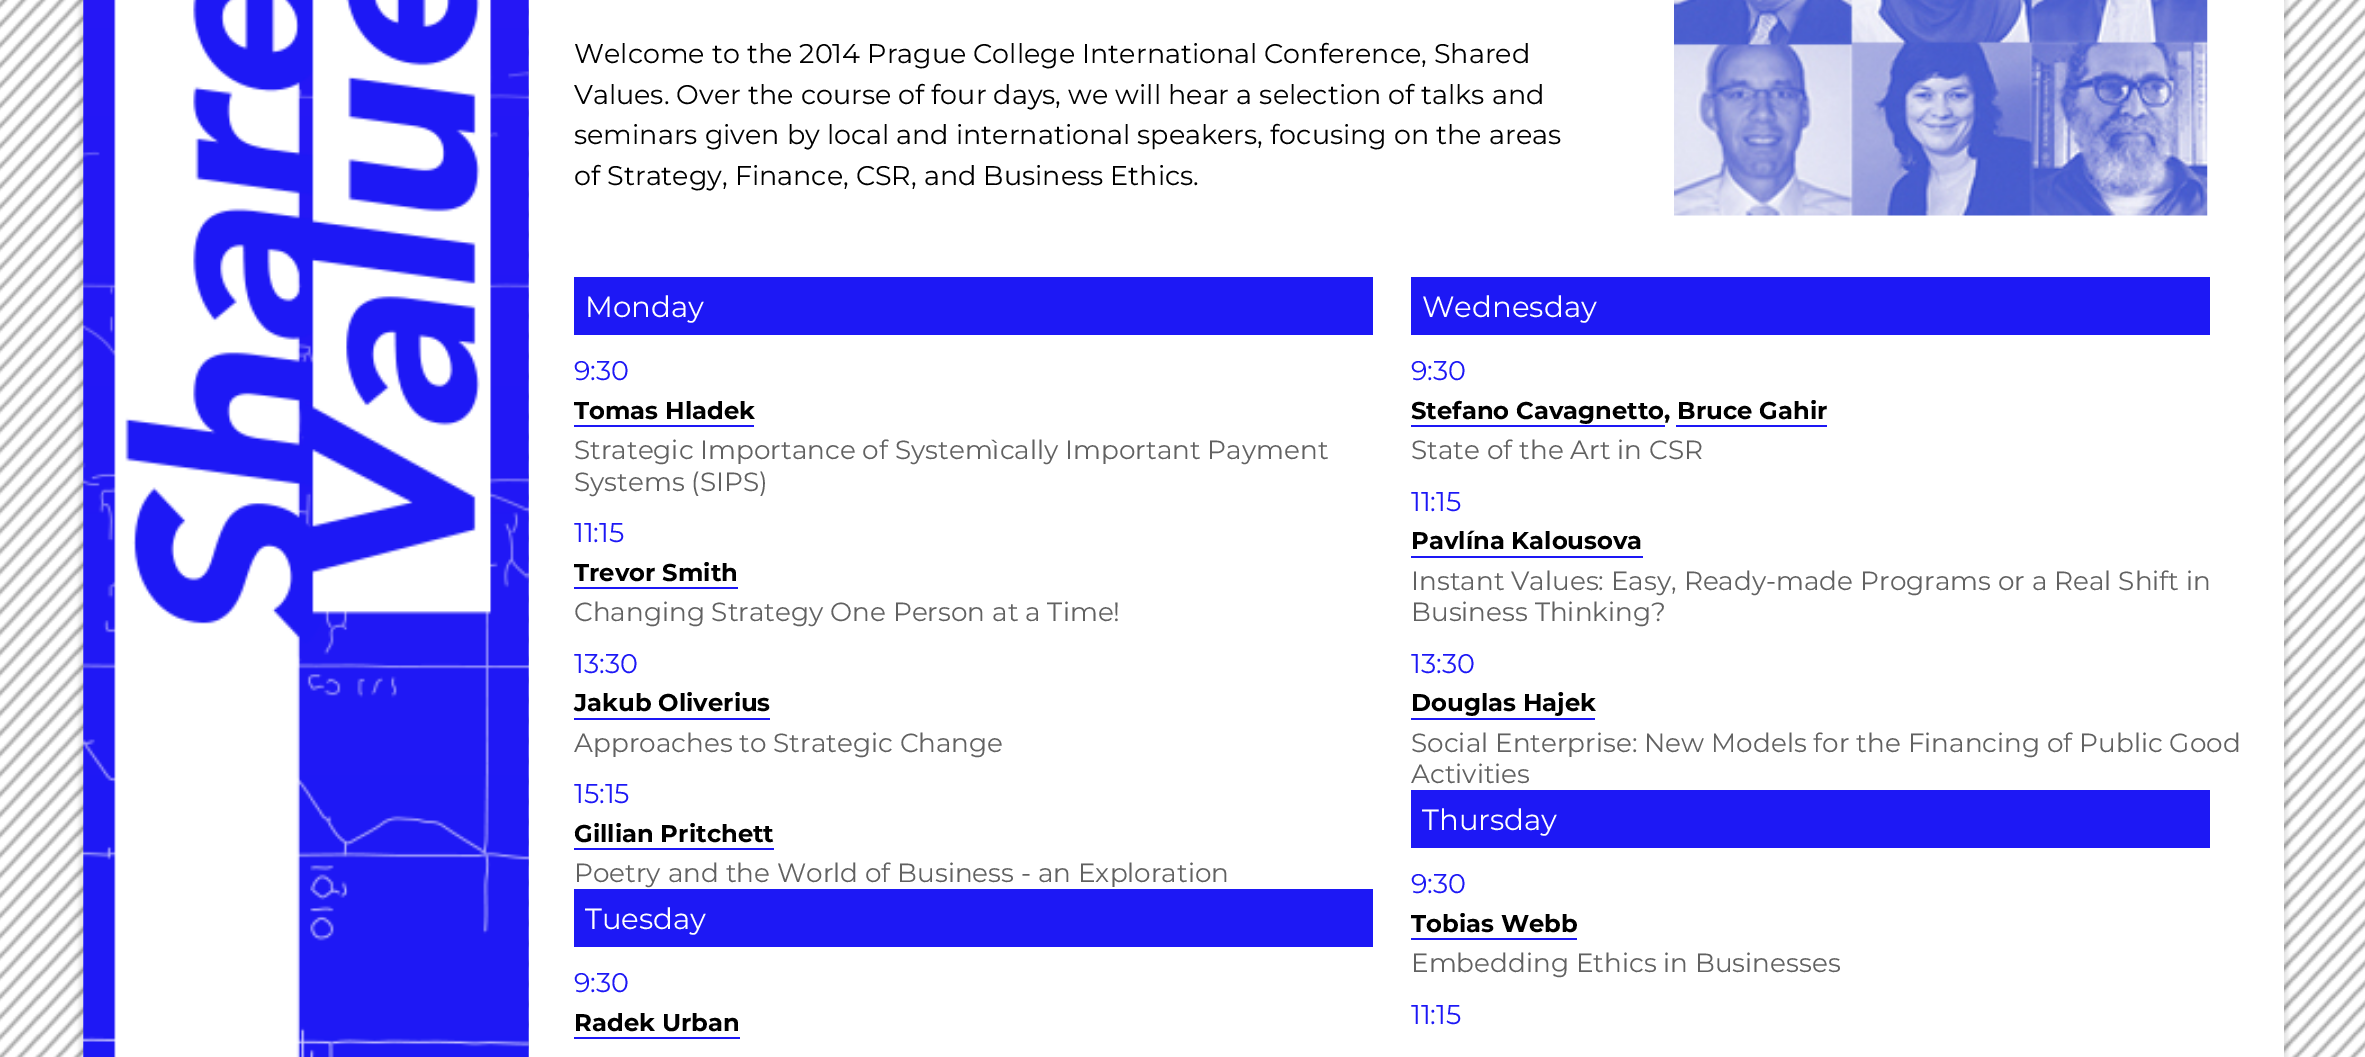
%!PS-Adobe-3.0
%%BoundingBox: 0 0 2365 1057
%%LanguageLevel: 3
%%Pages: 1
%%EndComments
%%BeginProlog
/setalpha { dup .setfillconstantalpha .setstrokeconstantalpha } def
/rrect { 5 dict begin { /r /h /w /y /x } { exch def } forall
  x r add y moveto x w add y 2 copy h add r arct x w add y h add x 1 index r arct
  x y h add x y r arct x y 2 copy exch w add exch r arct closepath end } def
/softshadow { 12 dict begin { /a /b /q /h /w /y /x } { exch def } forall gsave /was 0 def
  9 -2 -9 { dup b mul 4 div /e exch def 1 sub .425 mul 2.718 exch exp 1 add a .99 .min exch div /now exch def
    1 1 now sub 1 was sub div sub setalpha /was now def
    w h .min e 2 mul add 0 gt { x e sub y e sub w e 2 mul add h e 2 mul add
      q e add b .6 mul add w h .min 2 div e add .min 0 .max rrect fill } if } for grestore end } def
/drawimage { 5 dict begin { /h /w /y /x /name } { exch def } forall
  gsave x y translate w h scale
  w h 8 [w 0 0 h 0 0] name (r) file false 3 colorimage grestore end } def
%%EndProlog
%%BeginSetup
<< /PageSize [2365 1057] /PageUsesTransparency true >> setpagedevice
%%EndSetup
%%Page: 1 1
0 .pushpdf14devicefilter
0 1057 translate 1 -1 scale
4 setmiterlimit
1 setgray
0 0 2365 1057 rectfill
(images/1.raw) 0 0 2365 1057 drawimage
0 setgray
79 -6 2209 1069 0 2 0.1 softshadow
(images/2.raw) 83 0 446 1057 drawimage
1 setgray
529 0 1755 1057 rectfill
(images/3.raw) 1674 0 534 216 drawimage
0.114 0.094 0.961 setrgbcolor
574 277 799 58 rectfill
574 425 180 2 rectfill
574 587 164 2 rectfill
574 718 196 2 rectfill
574 848 200 2 rectfill
574 889 799 58 rectfill
574 1037 166 2 rectfill
1411 277 799 58 rectfill
1411 425 254 2 rectfill
1676 425 151 2 rectfill
1411 556 232 2 rectfill
1411 718 184 2 rectfill
1411 790 799 58 rectfill
1411 938 166 2 rectfill
/Montserrat-Regular [27 0 0 -27 0 0] selectfont
0 setgray
574 63 moveto (Welcome to the 2014 Prague College International Conference, Shared) show
574 104 moveto (Values. Over the course of four days, we will hear a selection of talks and) show
574 144 moveto (seminars given by local and international speakers, focusing on the areas) show
574 185 moveto (of Strategy, Finance, CSR, and Business Ethics.) show
/Montserrat-Regular [29.25 0 0 -29.25 0 0] selectfont
1 setgray
585 317 moveto (Monday) show
/Montserrat-Regular [27 0 0 -27 0 0] selectfont
0.114 0.094 0.961 setrgbcolor
574 380 moveto (9:30) show
/Montserrat-Bold [24.25 0 0 -24.25 0 0] selectfont
0 setgray
574 419 moveto (Tomas Hladek) show
/Montserrat-Regular [26.3 0 0 -26.3 0 0] selectfont
0.38 setgray
574 459 moveto (Strategic Importance of Systemìcally Important Payment) show
574 491 moveto (Systems \(SIPS\)) show
/Montserrat-Regular [27 0 0 -27 0 0] selectfont
0.114 0.094 0.961 setrgbcolor
574 542 moveto (11:15) show
/Montserrat-Bold [24.25 0 0 -24.25 0 0] selectfont
0 setgray
574 581 moveto (Trevor Smith) show
/Montserrat-Regular [26.3 0 0 -26.3 0 0] selectfont
0.38 setgray
574 621 moveto (Changing Strategy One Person at a Time!) show
/Montserrat-Regular [27 0 0 -27 0 0] selectfont
0.114 0.094 0.961 setrgbcolor
574 673 moveto (13:30) show
/Montserrat-Bold [24.25 0 0 -24.25 0 0] selectfont
0 setgray
574 711 moveto (Jakub Oliverius) show
/Montserrat-Regular [26.3 0 0 -26.3 0 0] selectfont
0.38 setgray
574 752 moveto (Approaches to Strategic Change) show
/Montserrat-Regular [27 0 0 -27 0 0] selectfont
0.114 0.094 0.961 setrgbcolor
574 803 moveto (15:15) show
/Montserrat-Bold [24.25 0 0 -24.25 0 0] selectfont
0 setgray
574 842 moveto (Gillian Pritchett) show
/Montserrat-Regular [26.3 0 0 -26.3 0 0] selectfont
0.38 setgray
574 882 moveto (Poetry and the World of Business - an Exploration) show
/Montserrat-Regular [29.25 0 0 -29.25 0 0] selectfont
1 setgray
585 929 moveto (Tuesday) show
/Montserrat-Regular [27 0 0 -27 0 0] selectfont
0.114 0.094 0.961 setrgbcolor
574 992 moveto (9:30) show
/Montserrat-Bold [24.25 0 0 -24.25 0 0] selectfont
0 setgray
574 1031 moveto (Radek Urban) show
/Montserrat-Regular [29.25 0 0 -29.25 0 0] selectfont
1 setgray
1422 317 moveto (Wednesday) show
/Montserrat-Regular [27 0 0 -27 0 0] selectfont
0.114 0.094 0.961 setrgbcolor
1411 380 moveto (9:30) show
/Montserrat-Bold [24.25 0 0 -24.25 0 0] selectfont
0 setgray
1411 419 moveto (Stefano Cavagnetto, Bruce Gahir) show
/Montserrat-Regular [26.3 0 0 -26.3 0 0] selectfont
0.38 setgray
1411 459 moveto (State of the Art in CSR) show
/Montserrat-Regular [27 0 0 -27 0 0] selectfont
0.114 0.094 0.961 setrgbcolor
1411 511 moveto (11:15) show
/Montserrat-Bold [24.25 0 0 -24.25 0 0] selectfont
0 setgray
1411 549 moveto (Pavlína Kalousova) show
/Montserrat-Regular [26.3 0 0 -26.3 0 0] selectfont
0.38 setgray
1411 590 moveto (Instant Values: Easy, Ready-made Programs or a Real Shift in) show
1411 621 moveto (Business Thinking?) show
/Montserrat-Regular [27 0 0 -27 0 0] selectfont
0.114 0.094 0.961 setrgbcolor
1411 673 moveto (13:30) show
/Montserrat-Bold [24.25 0 0 -24.25 0 0] selectfont
0 setgray
1411 711 moveto (Douglas Hajek) show
/Montserrat-Regular [26.3 0 0 -26.3 0 0] selectfont
0.38 setgray
1411 752 moveto (Social Enterprise: New Models for the Financing of Public Good) show
1411 783 moveto (Activities) show
/Montserrat-Regular [29.25 0 0 -29.25 0 0] selectfont
1 setgray
1422 830 moveto (Thursday) show
/Montserrat-Regular [27 0 0 -27 0 0] selectfont
0.114 0.094 0.961 setrgbcolor
1411 893 moveto (9:30) show
/Montserrat-Bold [24.25 0 0 -24.25 0 0] selectfont
0 setgray
1411 932 moveto (Tobias Webb) show
/Montserrat-Regular [26.3 0 0 -26.3 0 0] selectfont
0.38 setgray
1411 972 moveto (Embedding Ethics in Businesses) show
/Montserrat-Regular [27 0 0 -27 0 0] selectfont
0.114 0.094 0.961 setrgbcolor
1411 1024 moveto (11:15) show
.poppdf14devicefilter showpage
%%EOF
